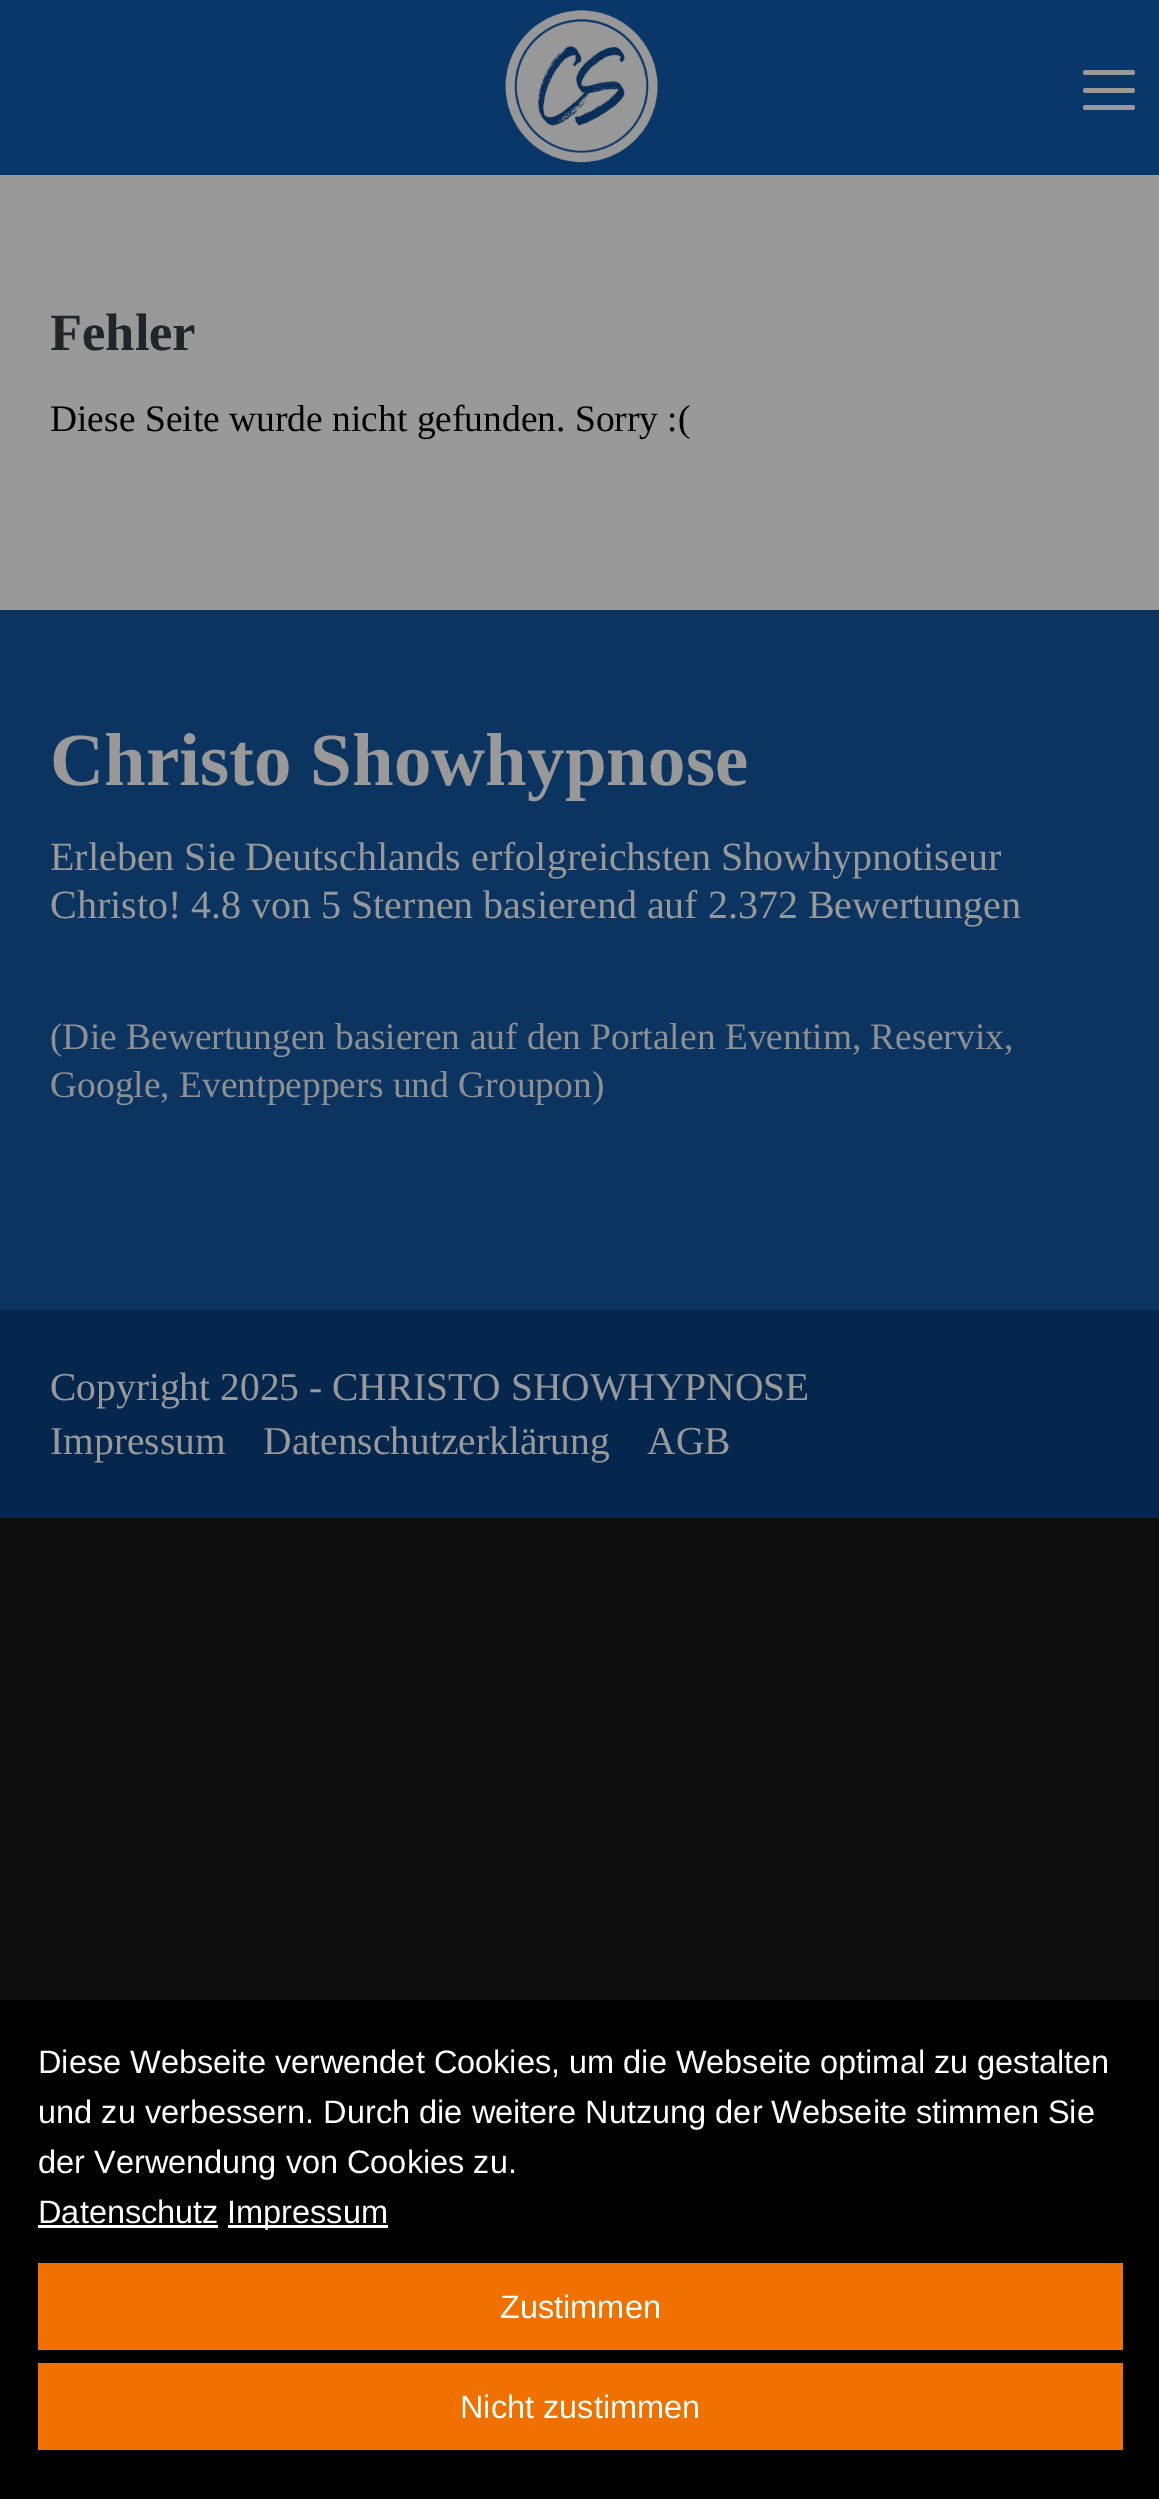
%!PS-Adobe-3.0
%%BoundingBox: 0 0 1159 2499
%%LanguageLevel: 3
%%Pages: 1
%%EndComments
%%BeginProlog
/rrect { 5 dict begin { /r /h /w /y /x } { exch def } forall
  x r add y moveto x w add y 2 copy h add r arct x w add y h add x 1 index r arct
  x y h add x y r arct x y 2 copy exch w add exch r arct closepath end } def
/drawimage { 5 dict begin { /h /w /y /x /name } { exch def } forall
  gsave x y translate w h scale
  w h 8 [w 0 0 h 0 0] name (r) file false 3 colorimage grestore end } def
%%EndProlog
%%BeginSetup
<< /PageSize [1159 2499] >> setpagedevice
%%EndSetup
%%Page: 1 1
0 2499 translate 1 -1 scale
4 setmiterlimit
0.055 setgray
0 0 1159 2499 rectfill
0.6 setgray
0 175 1159 435 rectfill
0.039 0.216 0.416 setrgbcolor
0 0 1159 175 rectfill
(images/1.raw) 505 10 153 153 drawimage
0.6 setgray
1083 88 52 5 2.5 rrect fill
1083 70 52 5 2.5 rrect fill
1083 105 52 5 2.5 rrect fill
0.047 0.204 0.38 setrgbcolor
0 610 1159 700 rectfill
0.02 0.153 0.306 setrgbcolor
0 1310 1159 208 rectfill
0 setgray
0 2000 1159 499 rectfill
1 setgray
38 2225 180 3 rectfill
228 2225 160 3 rectfill
0.941 0.443 0 setrgbcolor
38 2263 1085 87 rectfill
38 2363 1085 87 rectfill
/LiberationSerif-Bold [52.5 0 0 -52.5 0 0] selectfont
0.137 0.141 0.157 setrgbcolor
50 350 moveto (Fehler) show
/LiberationSerif-Regular [37.5 0 0 -37.5 0 0] selectfont
0 setgray
50 431 moveto (Diese Seite wurde nicht gefunden. Sorry :\() show
/LiberationSerif-Bold [75 0 0 -75 0 0] selectfont
0.6 setgray
50 785 moveto (Christo Showhypnose) show
/LiberationSerif-Regular [40 0 0 -40 0 0] selectfont
50 870 moveto (Erleben Sie Deutschlands erfolgreichsten Showhypnotiseur) show
50 918 moveto (Christo! 4.8 von 5 Sternen basierend auf 2.372 Bewertungen) show
/LiberationSerif-Regular [37.5 0 0 -37.5 0 0] selectfont
0.557 0.565 0.569 setrgbcolor
50 1049 moveto (\(Die Bewertungen basieren auf den Portalen Eventim, Reservix,) show
50 1097 moveto (Google, Eventpeppers und Groupon\)) show
/LiberationSerif-Regular [39.5 0 0 -39.5 0 0] selectfont
0.6 setgray
50 1400 moveto (Copyright 2025 - CHRISTO SHOWHYPNOSE) show
50 1454 moveto (Impressum) show
263 1454 moveto (Datenschutzerklärung) show
647 1454 moveto (AGB) show
/LiberationSans-Regular [32.5 0 0 -32.5 0 0] selectfont
1 setgray
38 2073 moveto (Diese Webseite verwendet Cookies, um die Webseite optimal zu gestalten) show
38 2123 moveto (und zu verbessern. Durch die weitere Nutzung der Webseite stimmen Sie) show
38 2173 moveto (der Verwendung von Cookies zu.) show
38 2223 moveto (Datenschutz) show
227 2223 moveto (Impressum) show
500 2318 moveto (Zustimmen) show
460 2418 moveto (Nicht zustimmen) show
showpage
%%EOF
